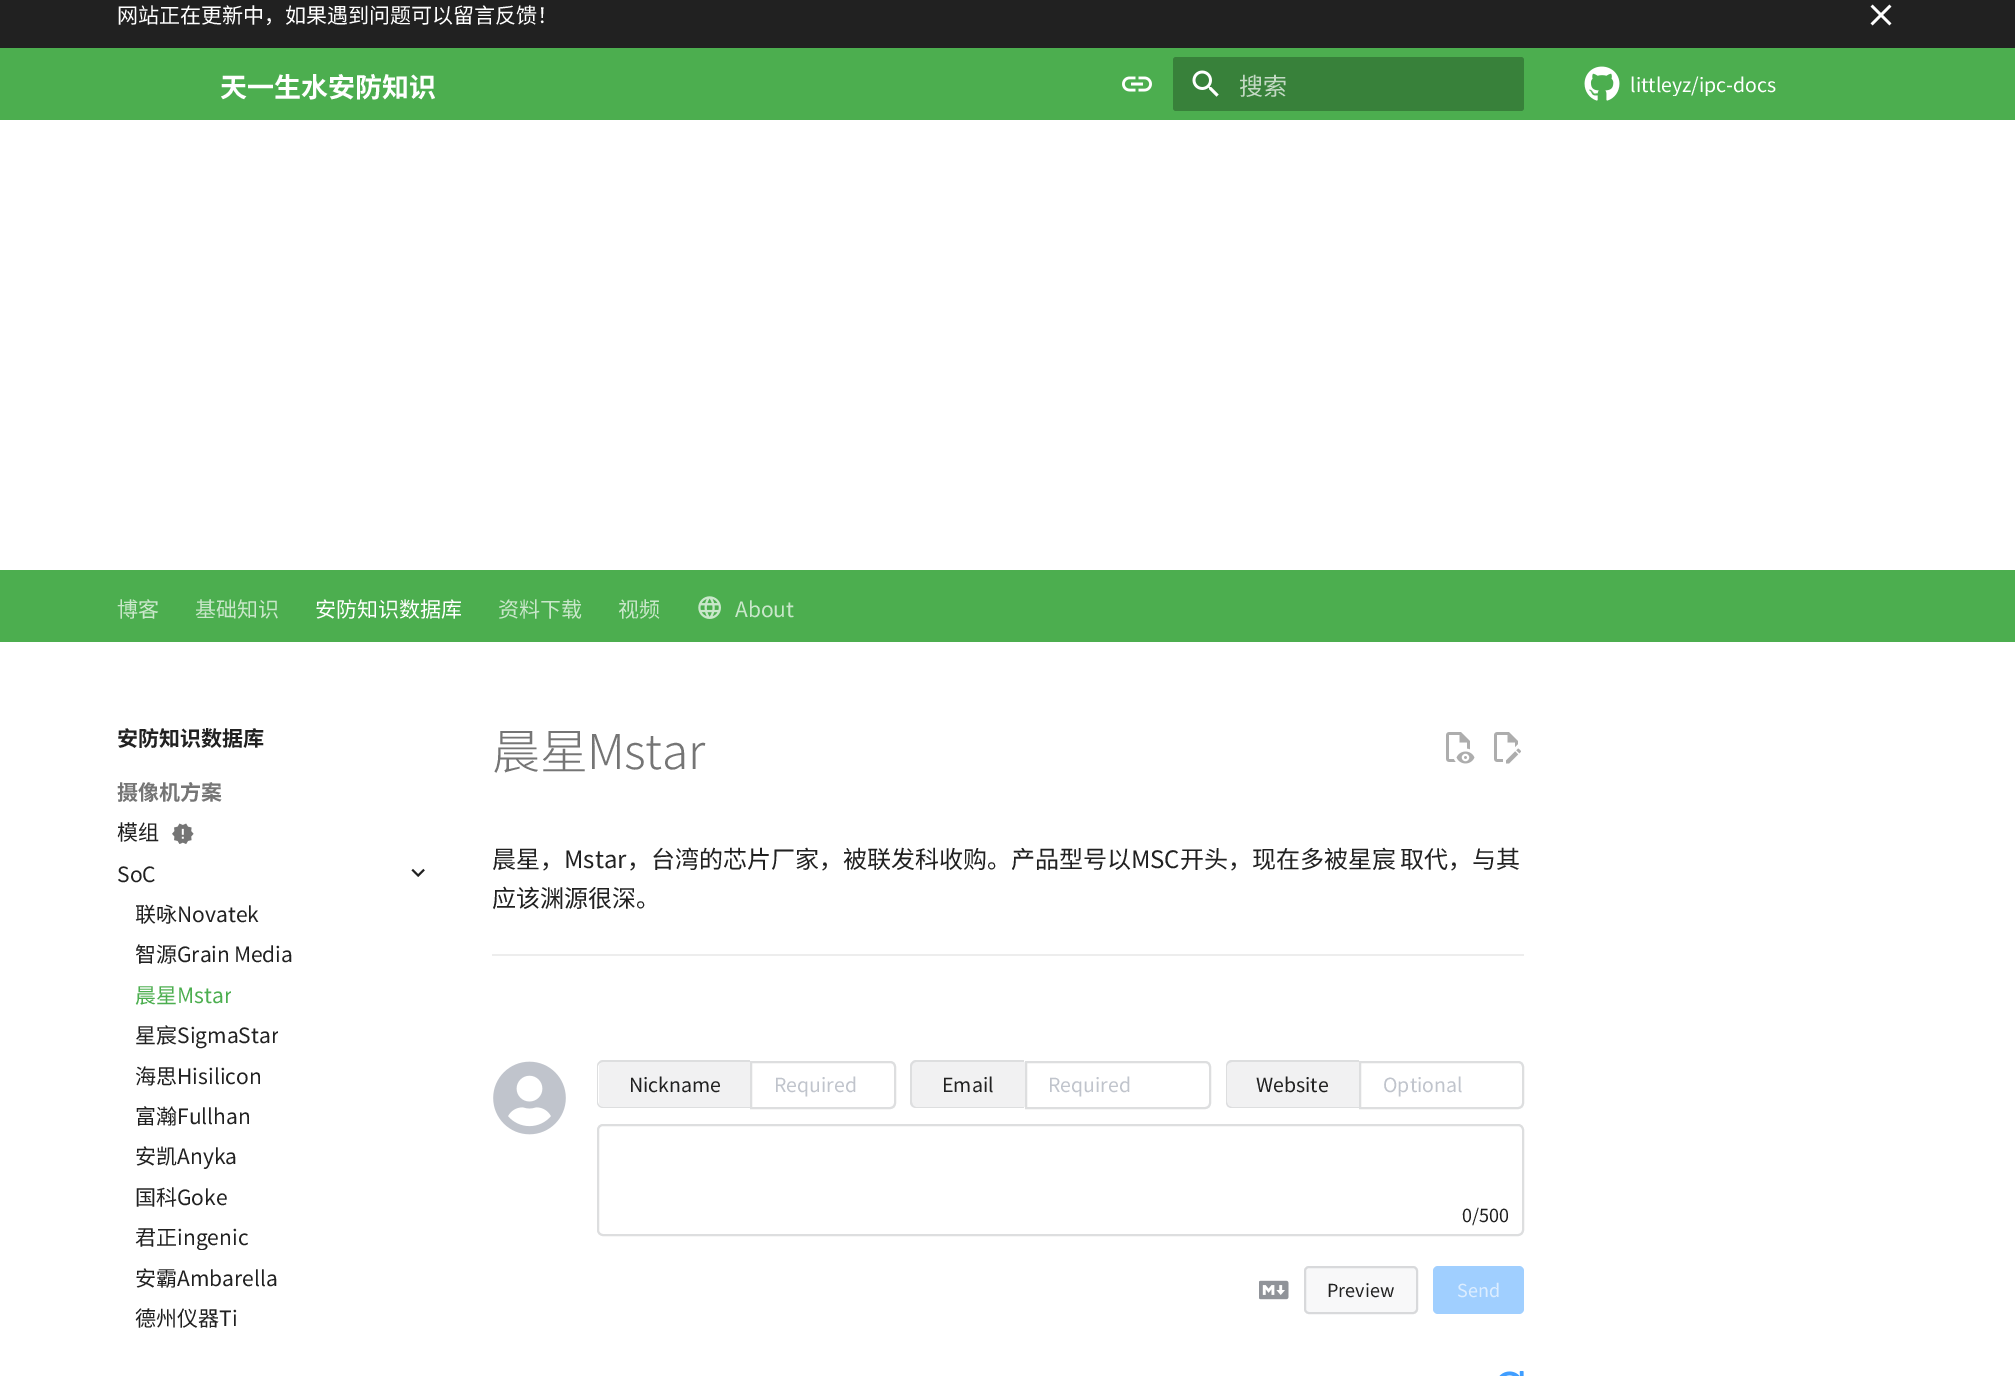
%!PS-Adobe-3.0
%%BoundingBox: 0 0 2015 1376
%%LanguageLevel: 3
%%Pages: 1
%%EndComments
%%BeginProlog
/setalpha { dup .setfillconstantalpha .setstrokeconstantalpha } def
/rrect { 5 dict begin { /r /h /w /y /x } { exch def } forall
  x r add y moveto x w add y 2 copy h add r arct x w add y h add x 1 index r arct
  x y h add x y r arct x y 2 copy exch w add exch r arct closepath end } def
/drawimage { 5 dict begin { /h /w /y /x /name } { exch def } forall
  gsave x y translate w h scale
  w h 8 [w 0 0 h 0 0] name (r) file false 3 colorimage grestore end } def
%%EndProlog
%%BeginSetup
<< /PageSize [2015 1376] /PageUsesTransparency true >> setpagedevice
%%EndSetup
%%Page: 1 1
0 .pushpdf14devicefilter
0 1376 translate 1 -1 scale
4 setmiterlimit
1 setgray
0 0 2015 1376 rectfill
0.129 setgray
0 0 2015 48 rectfill
(images/1.raw) 1870 4 22 22 drawimage
0.298 0.682 0.31 setrgbcolor
0 48 2015 72 rectfill
(images/2.raw) 1122 76 30 16 drawimage
0.22 0.506 0.227 setrgbcolor
1173 57 351 54 3 rrect fill
(images/3.raw) 1192 70 27 27 drawimage
(images/4.raw) 1584 66 36 35 drawimage
0.298 0.682 0.31 setrgbcolor
0 570 2015 72 rectfill
(images/5.raw) 698 596 23 23 drawimage
(images/6.raw) 172 823 22 21 drawimage
(images/7.raw) 411 868 14 9 drawimage
(images/8.raw) 1446 732 29 32 drawimage
(images/9.raw) 1494 732 27 32 drawimage
0.929 setgray
492 954 1032 2 rectfill
(images/10.raw) 493 1061 73 74 drawimage
0.945 0.945 0.949 setrgbcolor
newpath 604 1062 moveto 750 1062 lineto 750 1107 lineto 604 1107 lineto 601 1107 599 1105 599 1102 curveto 599 1067 lineto 599 1064 601 1062 604 1062 curveto closepath fill
0.867 0.871 0.875 setrgbcolor
newpath 603 1060 moveto 750 1060 lineto 750 1108 lineto 603 1108 lineto 600 1108 597 1106 597 1102 curveto 597 1066 lineto 597 1063 600 1060 603 1060 curveto closepath 603 1062 moveto 750 1062 lineto 750 1107 lineto 603 1107 lineto 601 1107 598 1105 598 1102 curveto 598 1066 lineto 598 1064 601 1062 603 1062 curveto closepath eofill
2 setlinewidth
newpath 751 1062 moveto 890 1062 lineto 893 1062 895 1064 895 1067 curveto 895 1103 lineto 895 1106 893 1108 890 1108 curveto 751 1108 lineto closepath stroke
0.945 0.945 0.949 setrgbcolor
newpath 917 1062 moveto 1025 1062 lineto 1025 1107 lineto 917 1107 lineto 914 1107 912 1105 912 1102 curveto 912 1067 lineto 912 1064 914 1062 917 1062 curveto closepath fill
0.31 setalpha
0.565 0.576 0.6 setrgbcolor
newpath 916 1060 moveto 1024 1060 lineto 1024 1108 lineto 916 1108 lineto 913 1108 910 1106 910 1102 curveto 910 1066 lineto 910 1063 913 1060 916 1060 curveto closepath 916 1062 moveto 1024 1062 lineto 1024 1107 lineto 916 1107 lineto 914 1107 912 1105 912 1102 curveto 912 1066 lineto 912 1064 914 1062 916 1062 curveto closepath eofill
1 setalpha
0.867 0.871 0.875 setrgbcolor
newpath 1026 1062 moveto 1205 1062 lineto 1208 1062 1210 1064 1210 1067 curveto 1210 1103 lineto 1210 1106 1208 1108 1205 1108 curveto 1026 1108 lineto closepath stroke
0.945 0.945 0.949 setrgbcolor
newpath 1232 1062 moveto 1359 1062 lineto 1359 1107 lineto 1232 1107 lineto 1229 1107 1227 1105 1227 1102 curveto 1227 1067 lineto 1227 1064 1229 1062 1232 1062 curveto closepath fill
0.31 setalpha
0.565 0.576 0.6 setrgbcolor
newpath 1232 1060 moveto 1359 1060 lineto 1359 1108 lineto 1232 1108 lineto 1228 1108 1226 1106 1226 1102 curveto 1226 1066 lineto 1226 1063 1228 1060 1232 1060 curveto closepath 1232 1062 moveto 1359 1062 lineto 1359 1107 lineto 1232 1107 lineto 1229 1107 1227 1105 1227 1102 curveto 1227 1066 lineto 1227 1064 1229 1062 1232 1062 curveto closepath eofill
1 setalpha
0.867 0.871 0.875 setrgbcolor
newpath 1360 1062 moveto 1518 1062 lineto 1521 1062 1523 1064 1523 1067 curveto 1523 1103 lineto 1523 1106 1521 1108 1518 1108 curveto 1360 1108 lineto closepath stroke
598 1125 925 110 5 rrect stroke
(images/11.raw) 1259 1280 30 20 drawimage
0.973 0.973 0.976 setrgbcolor
1304 1266 114 48 5 rrect fill
0.31 setalpha
0.565 0.576 0.6 setrgbcolor
1305 1267 112 46 4 rrect stroke
1 setalpha
0.627 0.812 1 setrgbcolor
1433 1266 91 48 5 rrect fill
(images/12.raw) 1499 1371 25 5 drawimage
/NotoSansSC-Regular [21 0 0 -21 0 0] selectfont
1 setgray
117 23 moveto (网站正在更新中，如果遇到问题可以留言反馈！) show
/NotoSansSC-Bold [27 0 0 -27 0 0] selectfont
220 97 moveto (天一生水安防知识) show
/NotoSansSC-Regular [24 0 0 -24 0 0] selectfont
0.765 0.851 0.769 setrgbcolor
1239 95 moveto (搜索) show
gsave
1571 74 205 22 rectclip
/NotoSansSC-Regular [19.5 0 0 -19.5 0 0] selectfont
1 setgray
1630 92 moveto (littleyz/ipc-docs) show
grestore
/NotoSansSC-Regular [21 0 0 -21 0 0] selectfont
0.788 0.906 0.792 setrgbcolor
117 617 moveto (博客) show
195 617 moveto (基础知识) show
1 setgray
315 617 moveto (安防知识数据库) show
0.788 0.906 0.792 setrgbcolor
498 617 moveto (资料下载) show
618 617 moveto (视频) show
735 617 moveto (About) show
/NotoSansSC-Bold [21 0 0 -21 0 0] selectfont
0.129 setgray
117 746 moveto (安防知识数据库) show
0.459 setgray
117 800 moveto (摄像机方案) show
/NotoSansSC-Regular [21 0 0 -21 0 0] selectfont
0.129 setgray
117 840 moveto (模组) show
117 882 moveto (SoC) show
135 922 moveto (联咏Novatek) show
135 962 moveto -1 0 32 (智源Grain Media) widthshow
gsave
135 981 96 27 rectclip
0.298 0.682 0.31 setrgbcolor
135 1003 moveto (晨星Mstar) show
grestore
gsave
135 1022 143 27 rectclip
135 1043 moveto (星宸SigmaStar) show
grestore
135 1084 moveto (海思Hisilicon) show
135 1124 moveto (富瀚Fullhan) show
135 1164 moveto (安凯Anyka) show
135 1205 moveto (国科Goke) show
gsave
135 1223 113 27 rectclip
135 1245 moveto (君正ingenic) show
grestore
135 1286 moveto (安霸Ambarella) show
135 1326 moveto (德州仪器Ti) show
/NotoSansSC-Light [48 0 0 -48 0 0] selectfont
0.459 setgray
492 769 moveto -0.5 0 (晨星Mstar) ashow
/NotoSansSC-Regular [24 0 0 -24 0 0] selectfont
0.129 setgray
492 868 moveto -1 0 32 (晨星，Mstar，台湾的芯片厂家，被联发科收购。产品型号以MSC开头，现在多被星宸 取代，与其) widthshow
492 907 moveto (应该渊源很深。) show
/NotoSansSC-Regular [19.5 0 0 -19.5 0 0] selectfont
629 1092 moveto (Nickname) show
0.753 0.769 0.8 setrgbcolor
774 1092 moveto (Required) show
0.129 setgray
942 1092 moveto (Email) show
0.753 0.769 0.8 setrgbcolor
1048 1092 moveto (Required) show
0.129 setgray
1256 1092 moveto (Website) show
0.753 0.769 0.8 setrgbcolor
1383 1092 moveto (Optional) show
/NotoSansSC-Regular [18 0 0 -18 0 0] selectfont
0.129 setgray
1462 1222 moveto (0/500) show
1327 1297 moveto (Preview) show
0.863 0.929 1 setrgbcolor
1457 1297 moveto (Send) show
.poppdf14devicefilter showpage
%%EOF
